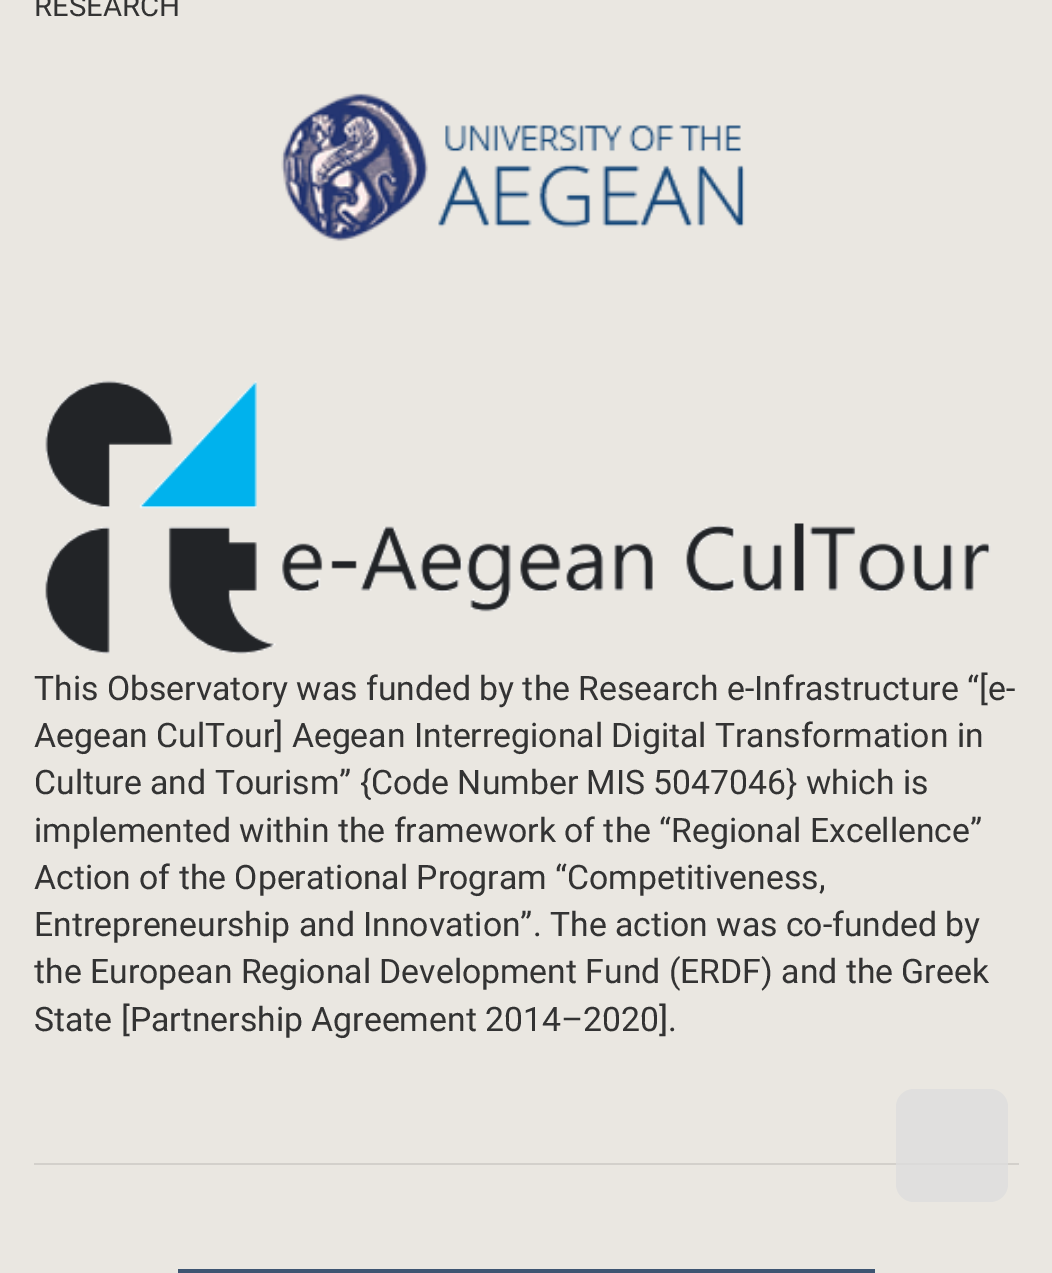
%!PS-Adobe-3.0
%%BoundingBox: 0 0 1052 1273
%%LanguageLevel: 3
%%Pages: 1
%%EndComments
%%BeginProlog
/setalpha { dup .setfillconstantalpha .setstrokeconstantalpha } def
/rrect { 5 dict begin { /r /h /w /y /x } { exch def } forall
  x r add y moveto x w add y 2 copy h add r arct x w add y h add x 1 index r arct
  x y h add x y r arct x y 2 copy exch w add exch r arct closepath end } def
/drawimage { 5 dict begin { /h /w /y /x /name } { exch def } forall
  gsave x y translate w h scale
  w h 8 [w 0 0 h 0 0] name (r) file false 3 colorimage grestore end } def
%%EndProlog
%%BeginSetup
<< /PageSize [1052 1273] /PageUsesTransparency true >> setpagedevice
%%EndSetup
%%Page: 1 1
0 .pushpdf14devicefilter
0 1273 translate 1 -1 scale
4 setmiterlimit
0.918 0.906 0.882 setrgbcolor
0 0 1052 1273 rectfill
(images/1.raw) 281 93 464 149 drawimage
(images/2.raw) 45 380 946 274 drawimage
0.827 0.816 0.796 setrgbcolor
34 1163 985 2 rectfill
0.243 0.333 0.447 setrgbcolor
178 1269 697 4 rectfill
0.8 setalpha
0.867 setgray
896 1089 112 113 18 rrect fill
/Roboto-Regular [29.25 0 0 -29.25 0 0] selectfont
1 setalpha
0.2 setgray
34 16 moveto (RESEARCH) show
/Roboto-Regular [33.75 0 0 -33.75 0 0] selectfont
34 700 moveto (This Observatory was funded by the Research e-Infrastructure “[e-) show
34 747 moveto (Aegean CulTour] Aegean Interregional Digital Transformation in) show
34 794 moveto (Culture and Tourism” {Code Number MIS 5047046} which is) show
34 842 moveto (implemented within the framework of the “Regional Excellence”) show
34 889 moveto (Action of the Operational Program “Competitiveness,) show
34 936 moveto (Entrepreneurship and Innovation”. The action was co-funded by) show
34 983 moveto (the European Regional Development Fund \(ERDF\) and the Greek) show
34 1031 moveto (State [Partnership Agreement 2014–2020].) show
.poppdf14devicefilter showpage
%%EOF
